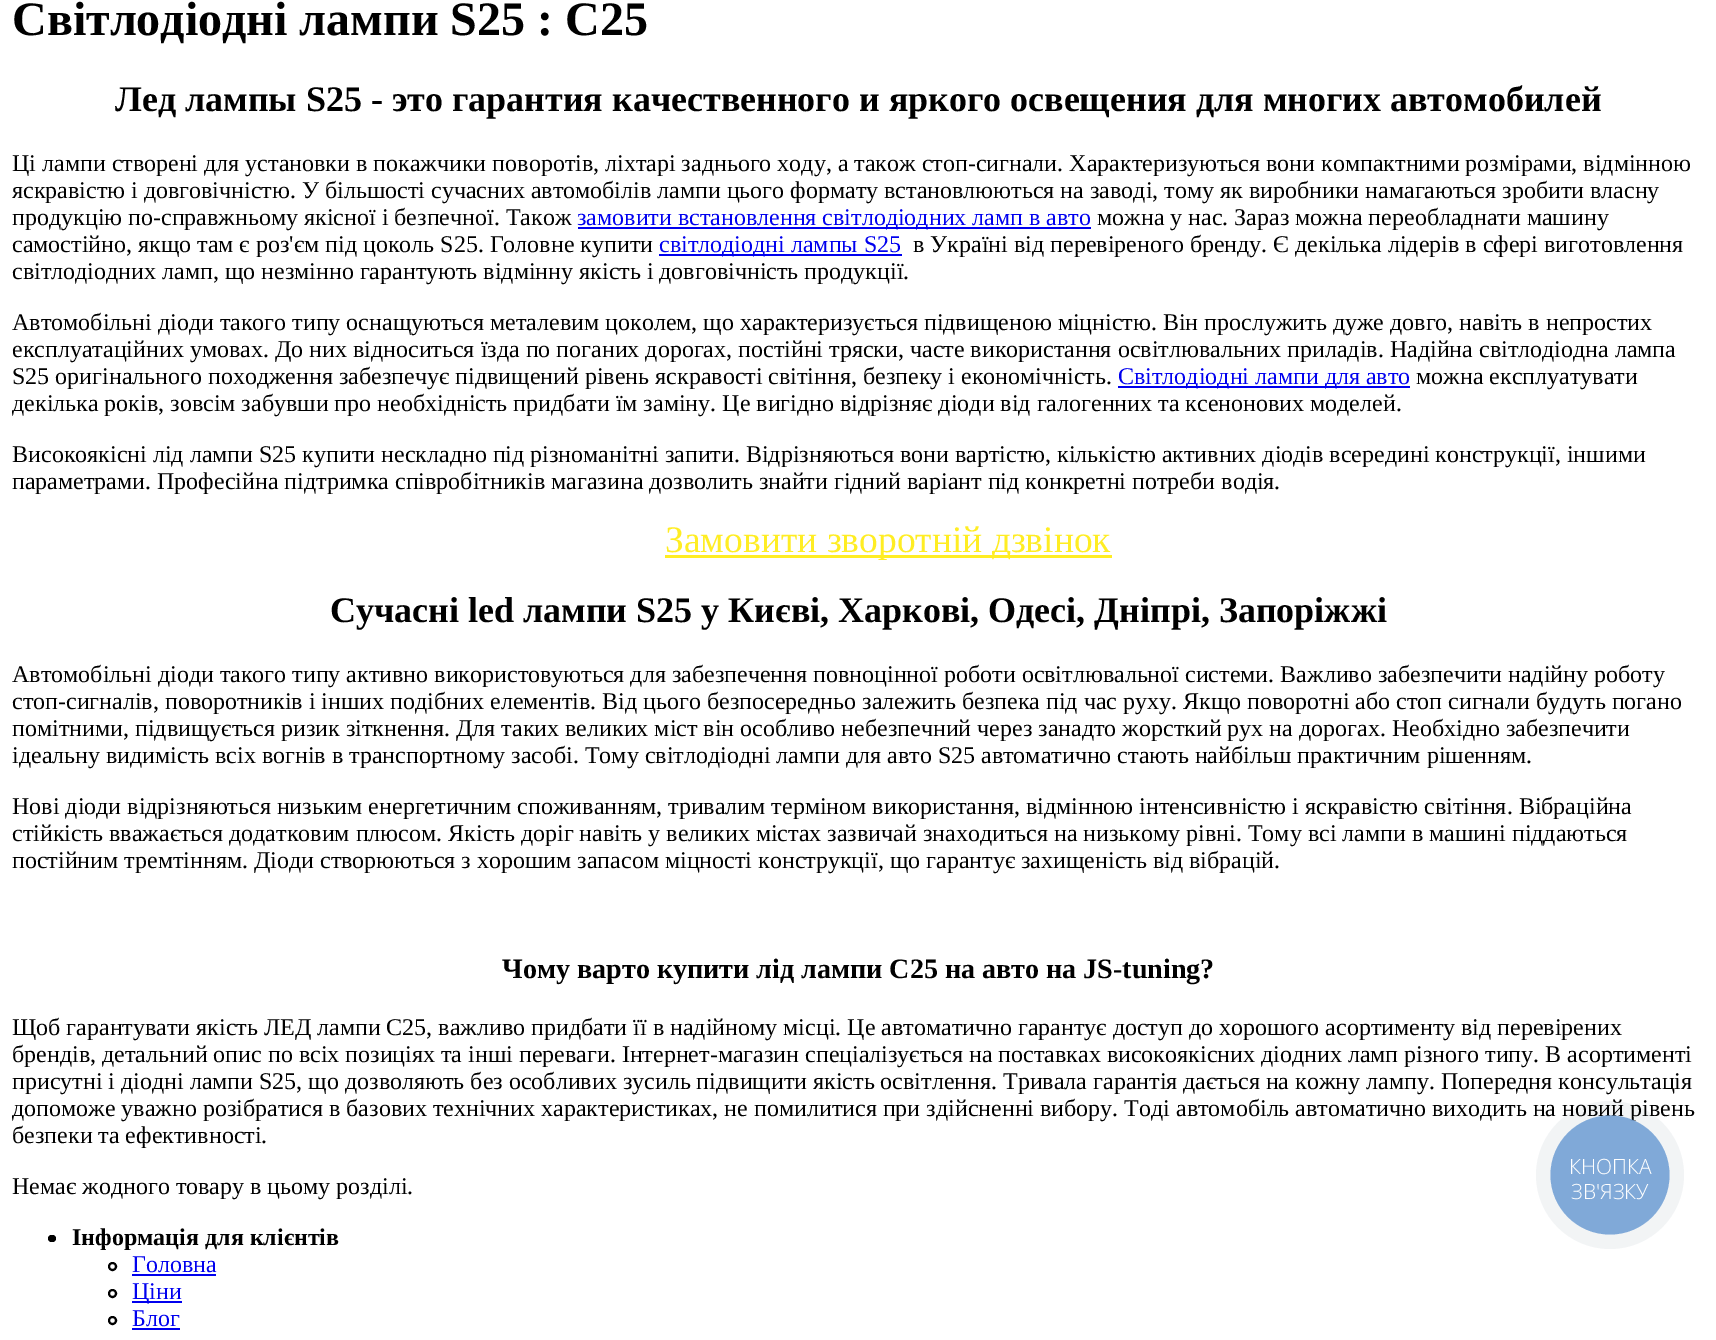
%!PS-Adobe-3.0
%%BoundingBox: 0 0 1716 1340
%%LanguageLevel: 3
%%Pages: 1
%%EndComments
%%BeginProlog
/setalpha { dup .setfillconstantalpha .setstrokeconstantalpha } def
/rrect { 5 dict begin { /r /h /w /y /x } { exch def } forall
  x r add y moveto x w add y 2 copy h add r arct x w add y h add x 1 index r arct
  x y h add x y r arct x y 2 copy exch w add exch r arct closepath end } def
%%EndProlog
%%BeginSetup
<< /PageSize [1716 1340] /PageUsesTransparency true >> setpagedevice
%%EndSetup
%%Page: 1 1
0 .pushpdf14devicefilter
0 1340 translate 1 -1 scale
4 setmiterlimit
1 setgray
0 0 1716 1340 rectfill
0 0 0.933 setrgbcolor
578 227 513 2 rectfill
659 254 243 2 rectfill
1118 386 292 2 rectfill
1 0.929 0.137 setrgbcolor
665 555 447 3 rectfill
0 setgray
48 1235 8 7 3.5 rrect fill
2 setlinewidth
newpath 112.5 1266.5 3.5 0 360 arc closepath stroke
0 0 0.933 setrgbcolor
132 1274 84 2 rectfill
0 setgray
newpath 112.5 1293.5 3.5 0 360 arc closepath stroke
0 0 0.933 setrgbcolor
132 1301 50 2 rectfill
0 setgray
newpath 112.5 1320.5 3.5 0 360 arc closepath stroke
0 0 0.933 setrgbcolor
132 1328 48 2 rectfill
0.06 setalpha
0.165 0.251 0.365 setrgbcolor
newpath 1610 1175 74 0 360 arc closepath fill
/LiberationSerif-Bold [48 0 0 -48 0 0] selectfont
1 setalpha
0 setgray
12 35 moveto (Світлодіодні лампи S25 : С25) show
/LiberationSerif-Bold [36 0 0 -36 0 0] selectfont
115 111 moveto (Лед лампы S25 - это гарантия качественного и яркого освещения для многих автомобилей) show
/LiberationSerif-Regular [24 0 0 -24 0 0] selectfont
12 171 moveto (Ці лампи створені для установки в покажчики поворотів, ліхтарі заднього ходу, а також стоп-сигнали. Характеризуються вони компактними розмірами, відмінною) show
12 198 moveto (яскравістю і довговічністю. У більшості сучасних автомобілів лампи цього формату встановлюються на заводі, тому як виробники намагаються зробити власну) show
12 225 moveto (продукцію по-справжньому якісної і безпечної. Також) show
0 0 0.933 setrgbcolor
577 225 moveto (замовити встановлення світлодіодних ламп в авто) show
0 setgray
1097 225 moveto (можна у нас. Зараз можна переобладнати машину) show
12 252 moveto (самостійно, якщо там є роз'єм під цоколь S25. Головне купити) show
0 0 0.933 setrgbcolor
659 252 moveto (світлодіодні лампы S25) show
0 setgray
913 252 moveto (в Україні від перевіреного бренду. Є декілька лідерів в сфері виготовлення) show
12 279 moveto (світлодіодних ламп, що незмінно гарантують відмінну якість і довговічність продукції.) show
12 330 moveto (Автомобільні діоди такого типу оснащуються металевим цоколем, що характеризується підвищеною міцністю. Він прослужить дуже довго, навіть в непростих) show
12 357 moveto (експлуатаційних умовах. До них відноситься їзда по поганих дорогах, постійні тряски, часте використання освітлювальних приладів. Надійна світлодіодна лампа) show
12 384 moveto (S25 оригінального походження забезпечує підвищений рівень яскравості світіння, безпеку і економічність.) show
0 0 0.933 setrgbcolor
1118 384 moveto (Світлодіодні лампи для авто) show
0 setgray
1416 384 moveto (можна експлуатувати) show
12 411 moveto (декілька років, зовсім забувши про необхідність придбати їм заміну. Це вигідно відрізняє діоди від галогенних та ксенонових моделей.) show
12 462 moveto (Високоякісні лід лампи S25 купити нескладно під різноманітні запити. Відрізняються вони вартістю, кількістю активних діодів всередині конструкції, іншими) show
12 489 moveto (параметрами. Професійна підтримка співробітників магазина дозволить знайти гідний варіант під конкретні потреби водія.) show
/LiberationSerif-Regular [37.5 0 0 -37.5 0 0] selectfont
1 0.929 0.137 setrgbcolor
665 552 moveto (Замовити зворотній дзвінок) show
/LiberationSerif-Bold [36 0 0 -36 0 0] selectfont
0 setgray
330 622 moveto (Сучасні led лампи S25 у Києві, Харкові, Одесі, Дніпрі, Запоріжжі) show
/LiberationSerif-Regular [24 0 0 -24 0 0] selectfont
12 682 moveto (Автомобільні діоди такого типу активно використовуються для забезпечення повноцінної роботи освітлювальної системи. Важливо забезпечити надійну роботу) show
12 709 moveto (стоп-сигналів, поворотників і інших подібних елементів. Від цього безпосередньо залежить безпека під час руху. Якщо поворотні або стоп сигнали будуть погано) show
12 736 moveto (помітними, підвищується ризик зіткнення. Для таких великих міст він особливо небезпечний через занадто жорсткий рух на дорогах. Необхідно забезпечити) show
12 763 moveto (ідеальну видимість всіх вогнів в транспортному засобі. Тому світлодіодні лампи для авто S25 автоматично стають найбільш практичним рішенням.) show
12 814 moveto (Нові діоди відрізняються низьким енергетичним споживанням, тривалим терміном використання, відмінною інтенсивністю і яскравістю світіння. Вібраційна) show
12 841 moveto (стійкість вважається додатковим плюсом. Якість доріг навіть у великих містах зазвичай знаходиться на низькому рівні. Тому всі лампи в машині піддаються) show
12 868 moveto (постійним тремтінням. Діоди створюються з хорошим запасом міцності конструкції, що гарантує захищеність від вібрацій.) show
/LiberationSerif-Bold [28.1 0 0 -28.1 0 0] selectfont
502 978 moveto (Чому варто купити лід лампи С25 на авто на JS-tuning?) show
/LiberationSerif-Regular [24 0 0 -24 0 0] selectfont
12 1035 moveto (Щоб гарантувати якість ЛЕД лампи С25, важливо придбати її в надійному місці. Це автоматично гарантує доступ до хорошого асортименту від перевірених) show
12 1062 moveto (брендів, детальний опис по всіх позиціях та інші переваги. Інтернет-магазин спеціалізується на поставках високоякісних діодних ламп різного типу. В асортименті) show
12 1089 moveto (присутні і діодні лампи S25, що дозволяють без особливих зусиль підвищити якість освітлення. Тривала гарантія дається на кожну лампу. Попередня консультація) show
12 1116 moveto (допоможе уважно розібратися в базових технічних характеристиках, не помилитися при здійсненні вибору. Тоді автомобіль автоматично виходить на новий рівень) show
12 1143 moveto (безпеки та ефективності.) show
12 1194 moveto (Немає жодного товару в цьому розділі.) show
/LiberationSerif-Bold [24 0 0 -24 0 0] selectfont
72 1245 moveto (Інформація для клієнтів) show
/LiberationSerif-Regular [24 0 0 -24 0 0] selectfont
0 0 0.933 setrgbcolor
132 1272 moveto (Головна) show
132 1299 moveto (Ціни) show
132 1326 moveto (Блог) show
0.92 setalpha
0.463 0.639 0.839 setrgbcolor
newpath 1610 1175 59.5 0 360 arc closepath fill
/OpenSans-Light [21 0 0 -21 0 0] selectfont
1 setalpha
1 setgray
1569 1174 moveto (КНОПКА) show
1571 1199 moveto (ЗВ'ЯЗКУ) show
.poppdf14devicefilter showpage
%%EOF
